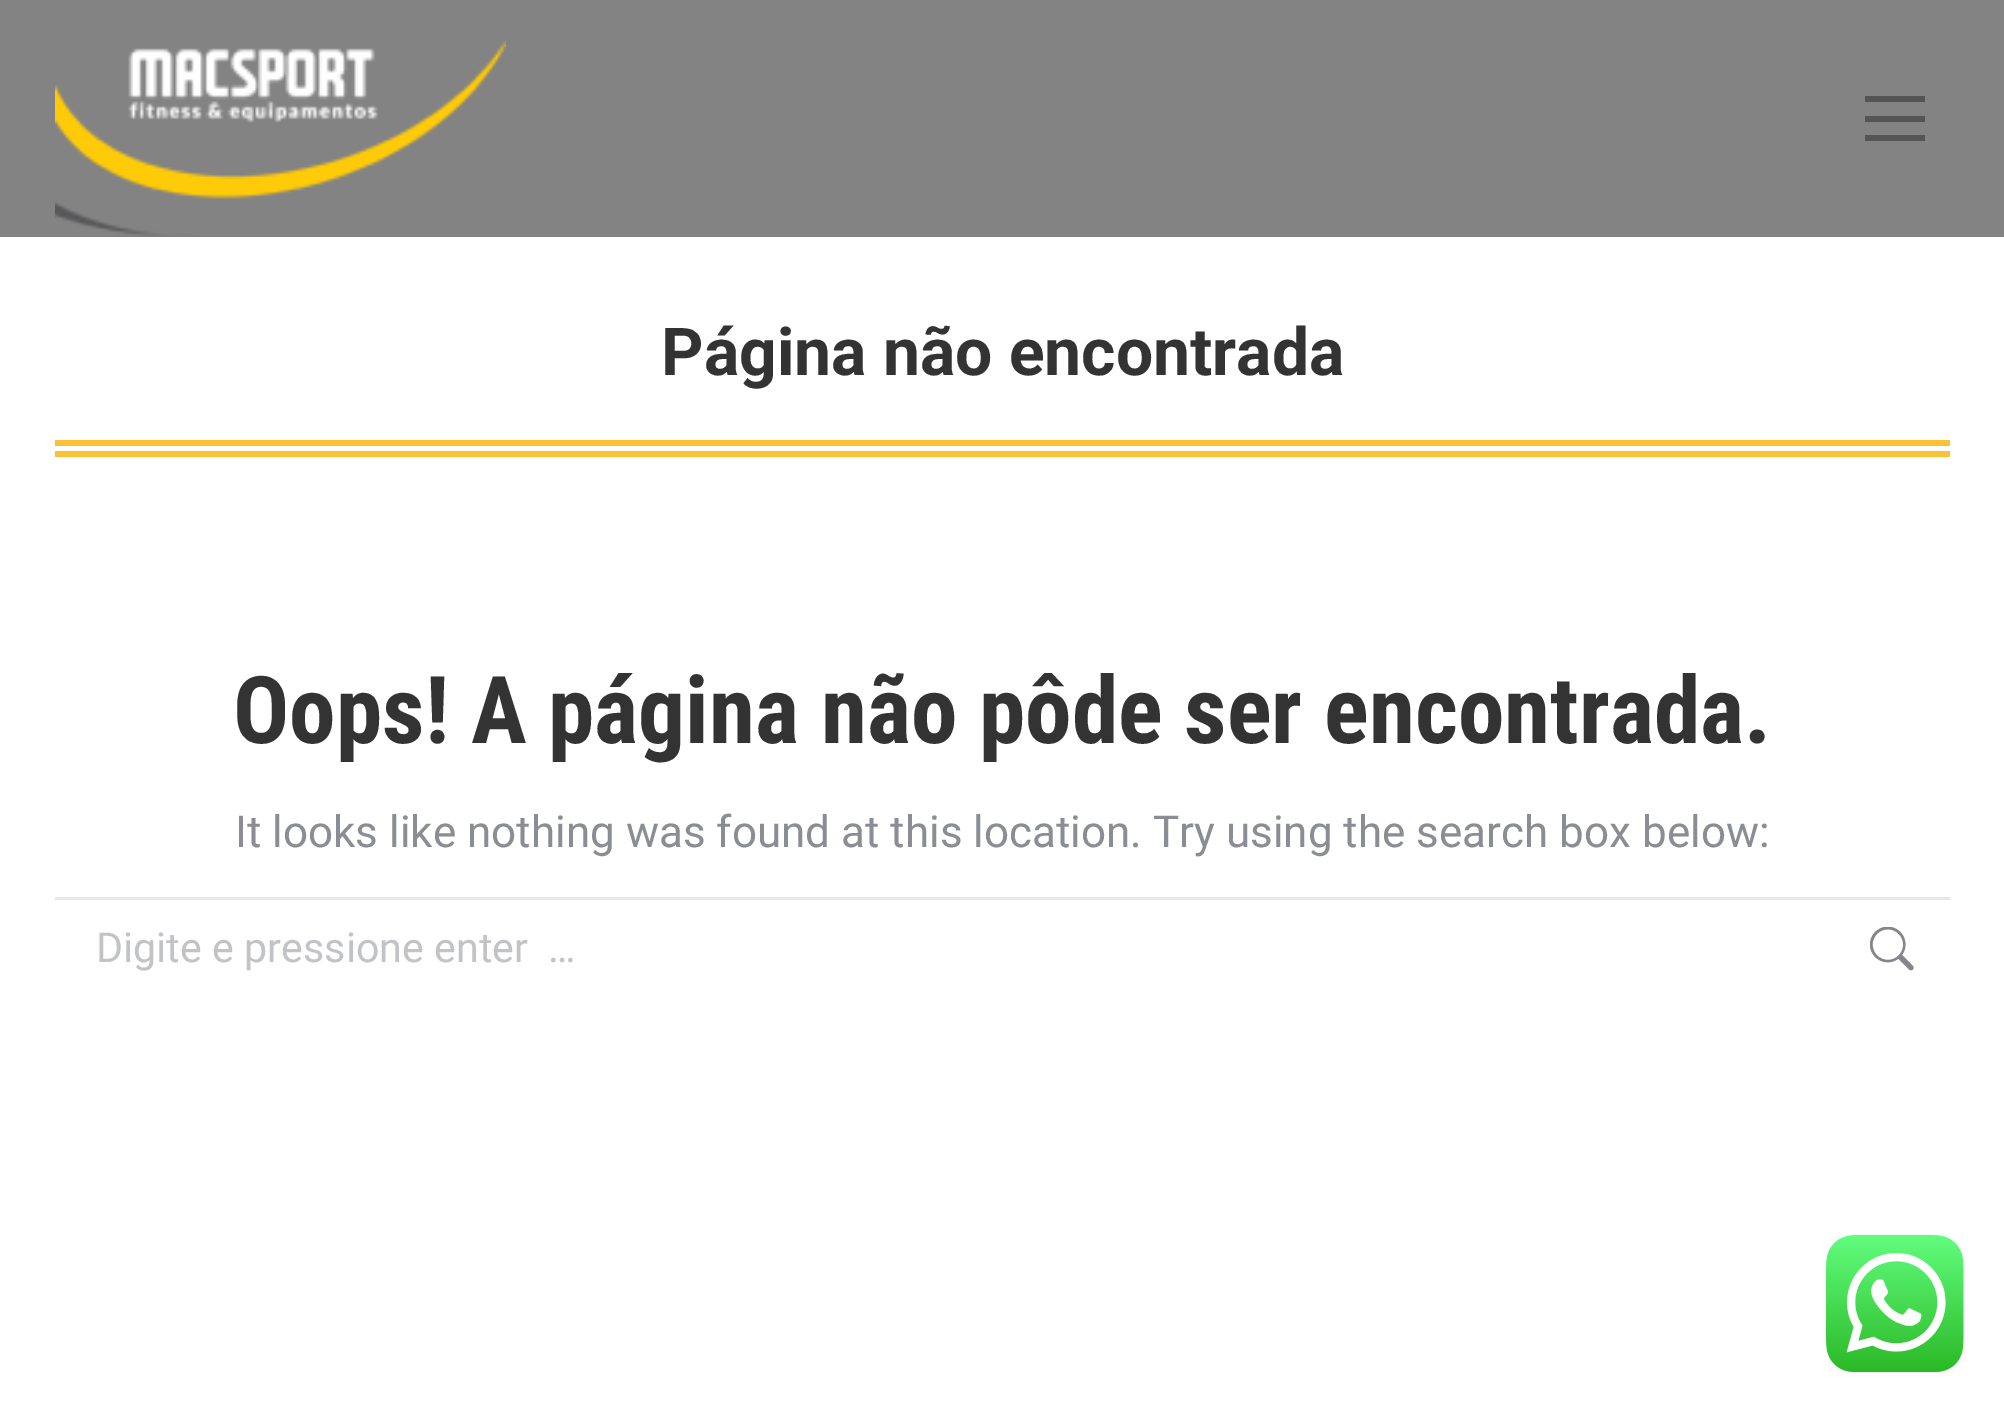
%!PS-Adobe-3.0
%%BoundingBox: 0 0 2004 1412
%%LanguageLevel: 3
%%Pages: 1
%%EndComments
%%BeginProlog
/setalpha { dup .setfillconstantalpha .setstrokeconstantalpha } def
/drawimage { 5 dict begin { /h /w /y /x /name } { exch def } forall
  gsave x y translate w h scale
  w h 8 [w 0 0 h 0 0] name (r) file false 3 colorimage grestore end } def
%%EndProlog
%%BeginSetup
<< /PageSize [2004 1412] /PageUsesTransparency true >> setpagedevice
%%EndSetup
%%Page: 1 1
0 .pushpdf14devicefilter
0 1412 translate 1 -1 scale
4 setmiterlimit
1 setgray
0 0 2004 1412 rectfill
0.9 setalpha
0.459 setgray
0 0 2004 237 rectfill
1 setalpha
(images/1.raw) 55 41 451 196 drawimage
0.329 setgray
1865 96 60 6 rectfill
1865 116 60 6 rectfill
1865 135 60 6 rectfill
0.992 0.757 0.204 setrgbcolor
55 440 1895 6 rectfill
55 451 1895 6 rectfill
0.906 setgray
55 897 1895 3 rectfill
(images/2.raw) 1870 927 44 44 drawimage
(images/3.raw) 1826 1235 138 137 drawimage
/Roboto-Bold [66 0 0 -66 0 0] selectfont
0.2 setgray
661 375 moveto (Página não encontrada) show
/RobotoCondensed-Bold [93.5 0 0 -93.5 0 0] selectfont
233 743 moveto (Oops! A página não pôde ser encontrada.) show
/Roboto-Regular [44 0 0 -44 0 0] selectfont
0.545 0.553 0.58 setrgbcolor
235 847 moveto (It looks like nothing was found at this location. Try using the search box below:) show
/Roboto-Regular [41.25 0 0 -41.25 0 0] selectfont
0.761 0.765 0.776 setrgbcolor
96 962 moveto (Digite e pressione enter  …) show
.poppdf14devicefilter showpage
%%EOF
